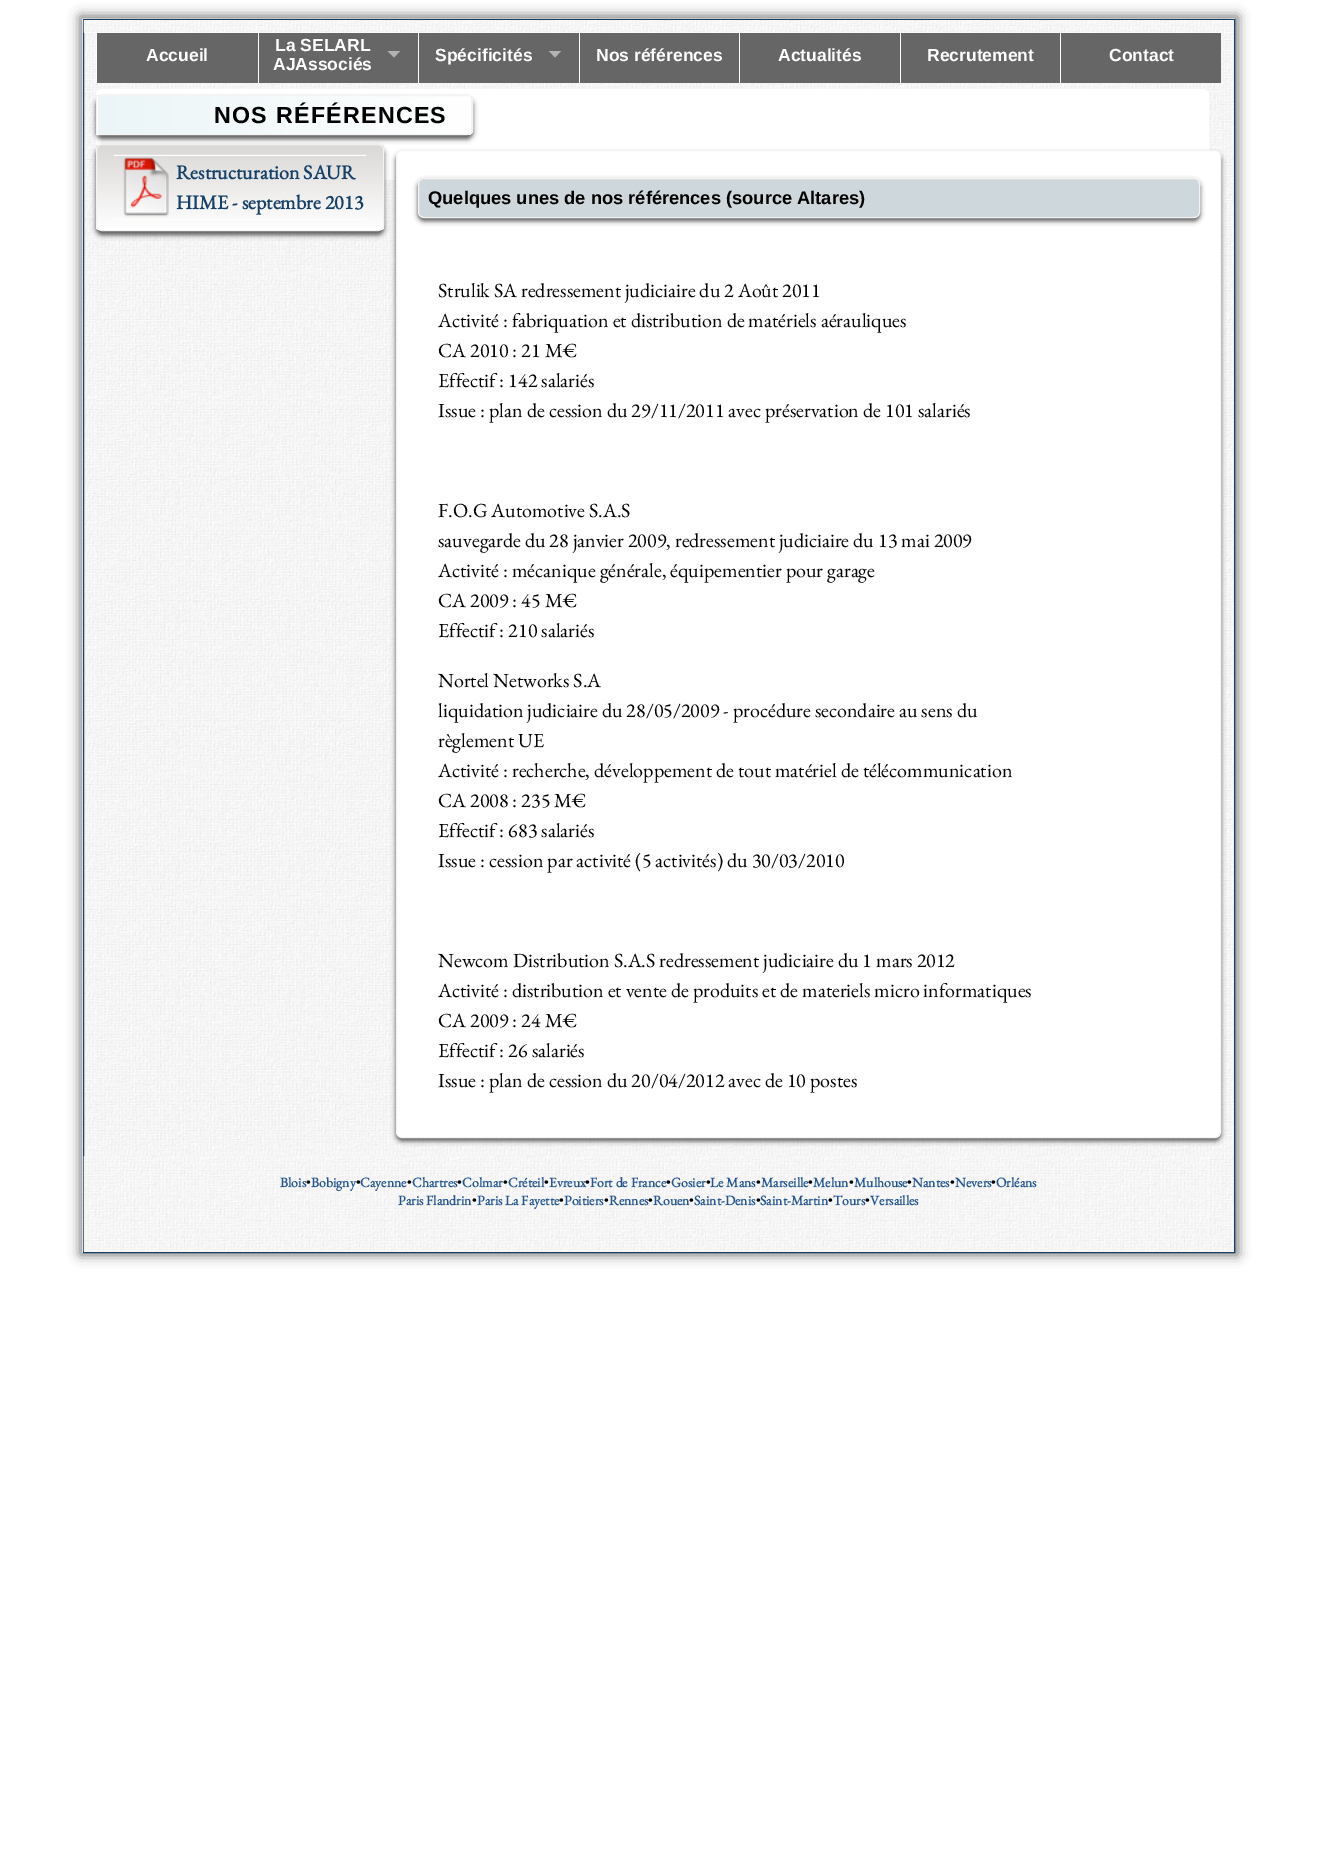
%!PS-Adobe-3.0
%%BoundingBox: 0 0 1317 1863
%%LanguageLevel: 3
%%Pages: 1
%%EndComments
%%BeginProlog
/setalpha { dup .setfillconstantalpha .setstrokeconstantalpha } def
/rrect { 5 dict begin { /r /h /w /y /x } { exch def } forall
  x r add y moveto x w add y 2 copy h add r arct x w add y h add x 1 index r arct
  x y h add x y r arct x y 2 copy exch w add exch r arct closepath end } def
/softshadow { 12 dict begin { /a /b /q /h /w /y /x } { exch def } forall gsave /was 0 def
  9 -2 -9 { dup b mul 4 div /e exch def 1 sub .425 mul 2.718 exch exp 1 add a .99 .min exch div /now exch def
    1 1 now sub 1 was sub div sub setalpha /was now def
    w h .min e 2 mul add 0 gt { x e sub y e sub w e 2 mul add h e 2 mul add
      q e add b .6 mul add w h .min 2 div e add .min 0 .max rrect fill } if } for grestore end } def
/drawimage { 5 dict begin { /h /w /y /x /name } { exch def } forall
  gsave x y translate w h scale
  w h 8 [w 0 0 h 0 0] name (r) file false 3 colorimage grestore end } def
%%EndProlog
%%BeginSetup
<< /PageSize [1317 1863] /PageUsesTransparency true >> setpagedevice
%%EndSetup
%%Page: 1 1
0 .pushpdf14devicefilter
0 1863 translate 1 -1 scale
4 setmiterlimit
1 setgray
0 0 1317 1863 rectfill
0.443 setgray
80 16 1158 1239 0 6 1 softshadow
(images/1.raw) 82 18 1153 1235 drawimage
0.082 0.251 0.404 setrgbcolor
83.5 19.5 1151 1233 rectstroke
1 setgray
96 26 1 57 rectfill
0.4 setgray
97 33 1124 50 rectfill
1 setgray
258 26 1 57 rectfill
418 26 1 57 rectfill
579 26 1 57 rectfill
739 26 1 57 rectfill
900 26 1 57 rectfill
1060 26 1 57 rectfill
84 20 1150 13 rectfill
(images/2.raw) 83 20 1151 13 drawimage
0.702 setgray
newpath 387.5 51 moveto 400 51 lineto 394 57.5 lineto closepath fill
newpath 549 51 moveto 561 51 lineto 555 57.5 lineto closepath fill
1 setgray
96 89 1113 91 6 rrect fill
0.333 setgray
96 148 288 87 6 2.5 1 softshadow
gsave
96 144 288 87 6 rrect clip newpath
gsave newpath 96 145 moveto 384 145 lineto 384 230 lineto 96 230 lineto closepath clip newpath
<< /ShadingType 2 /ColorSpace /DeviceRGB /Coords [240 145 240 230] /Extend [true true] /Function << /FunctionType 2 /Domain [0 1] /C0 [0.855 0.847 0.839] /C1 [1 1 1] /N 1 >> >> shfill grestore
grestore
0.953 setgray
96.5 144.5 287 86 5.5 rrect stroke
0.333 setgray
96 99 377 40 6 2.5 1 softshadow
gsave newpath 97 95 moveto 98 95 lineto 98 135 lineto 97 135 lineto closepath clip newpath
<< /ShadingType 2 /ColorSpace /DeviceRGB /Coords [-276 115 98 115] /Extend [true true] /Function << /FunctionType 2 /Domain [0 1] /C0 [0.922 0.961 0.969] /C1 [1 1 1] /N 1 >> >> shfill grestore
gsave
newpath 96 95 moveto 467 95 lineto 470.5 95 473 97.5 473 101 curveto 473 129 lineto 473 132.5 470.5 135 467 135 curveto 96 135 lineto closepath clip newpath
gsave newpath 98 95 moveto 471 95 lineto 471 135 lineto 98 135 lineto closepath clip newpath
<< /ShadingType 2 /ColorSpace /DeviceRGB /Coords [98 115 471 115] /Extend [true true] /Function << /FunctionType 2 /Domain [0 1] /C0 [0.922 0.961 0.969] /C1 [1 1 1] /N 1 >> >> shfill grestore
gsave newpath 471 95 moveto 473 95 lineto 473 135 lineto 471 135 lineto closepath clip newpath
<< /ShadingType 2 /ColorSpace /DeviceRGB /Coords [471 115 845 115] /Extend [true true] /Function << /FunctionType 2 /Domain [0 1] /C0 [0.922 0.961 0.969] /C1 [1 1 1] /N 1 >> >> shfill grestore
grestore
0.953 setgray
newpath 96.5 95.5 moveto 467 95.5 lineto 470 95.5 472.5 98 472.5 101 curveto 472.5 129 lineto 472.5 132 470 134.5 467 134.5 curveto 96.5 134.5 lineto closepath stroke
0.882 setgray
111 154 258 1 rectfill
1 setgray
114 155 252 1 rectfill
114 219 252 1 rectfill
(images/3.raw) 123 157 46 60 drawimage
0.333 setgray
396 154 825 987 6 2.5 1 softshadow
1 setgray
396.5 150.5 824 987 5.5 rrect gsave fill grestore
0.953 setgray
stroke
0.333 setgray
418 181 782 40 6 2.5 1 softshadow
0.808 0.843 0.863 setrgbcolor
418.5 178.5 781 39 5.5 rrect gsave fill grestore
0.953 setgray
stroke
1 setgray
84 1156 1125 95 rectfill
(images/4.raw) 83 1156 1126 96 drawimage
/LiberationSans-Bold [17.5 0 0 -17.5 0 0] selectfont
146 61 moveto (Accueil) show
275 51 moveto (La SELARL) show
273 70 moveto (AJAssociés) show
435 61 moveto (Spécificités) show
596 61 moveto (Nos références) show
778 61 moveto (Actualités) show
927 61 moveto (Recrutement) show
1109 61 moveto (Contact) show
/LiberationSans-Bold [23.25 0 0 -23.25 0 0] selectfont
0 setgray
214 123 moveto 1.25 0 (NOS RÉFÉRENCES) ashow
/EBGaramond-Bold [20 0 0 -20 0 0] selectfont
0.082 0.251 0.404 setrgbcolor
176 179 moveto (Restructuration SAUR) show
176 209 moveto (HIME - septembre 2013) show
/LiberationSans-Bold [18.3 0 0 -18.3 0 0] selectfont
0 setgray
428 204 moveto (Quelques unes de nos références \(source Altares\)) show
/EBGaramond-Regular [20 0 0 -20 0 0] selectfont
438 297 moveto (Strulik SA redressement judiciaire du 2 Août 2011) show
438 327 moveto (Activité : fabriquation et distribution de matériels aérauliques) show
438 357 moveto (CA 2010 : 21 M€) show
438 387 moveto (Effectif : 142 salariés) show
438 417 moveto (Issue : plan de cession du 29/11/2011 avec préservation de 101 salariés) show
438 517 moveto (F.O.G Automotive S.A.S) show
438 547 moveto (sauvegarde du 28 janvier 2009, redressement judiciaire du 13 mai 2009) show
438 577 moveto (Activité : mécanique générale, équipementier pour garage) show
438 607 moveto (CA 2009 : 45 M€) show
438 637 moveto (Effectif : 210 salariés) show
438 687 moveto (Nortel Networks S.A) show
438 717 moveto (liquidation judiciaire du 28/05/2009 - procédure secondaire au sens du) show
438 747 moveto (règlement UE) show
438 777 moveto (Activité : recherche, développement de tout matériel de télécommunication) show
438 807 moveto (CA 2008 : 235 M€) show
438 837 moveto (Effectif : 683 salariés) show
438 867 moveto (Issue : cession par activité \(5 activités\) du 30/03/2010) show
438 967 moveto (Newcom Distribution S.A.S redressement judiciaire du 1 mars 2012) show
438 997 moveto (Activité : distribution et vente de produits et de materiels micro informatiques) show
438 1027 moveto (CA 2009 : 24 M€) show
438 1057 moveto (Effectif : 26 salariés) show
438 1087 moveto (Issue : plan de cession du 20/04/2012 avec de 10 postes) show
/EBGaramond-Bold [13.75 0 0 -13.75 0 0] selectfont
0.145 0.333 0.569 setrgbcolor
280 1187 moveto (Blois) show
/EBGaramond-Regular [13.75 0 0 -13.75 0 0] selectfont
0 setgray
306 1187 moveto (•) show
/EBGaramond-Bold [13.75 0 0 -13.75 0 0] selectfont
0.145 0.333 0.569 setrgbcolor
311 1187 moveto (Bobigny) show
/EBGaramond-Regular [13.75 0 0 -13.75 0 0] selectfont
0 setgray
356 1187 moveto (•) show
/EBGaramond-Bold [13.75 0 0 -13.75 0 0] selectfont
0.145 0.333 0.569 setrgbcolor
360 1187 moveto (Cayenne) show
/EBGaramond-Regular [13.75 0 0 -13.75 0 0] selectfont
0 setgray
407 1187 moveto (•) show
/EBGaramond-Bold [13.75 0 0 -13.75 0 0] selectfont
0.145 0.333 0.569 setrgbcolor
412 1187 moveto (Chartres) show
/EBGaramond-Regular [13.75 0 0 -13.75 0 0] selectfont
0 setgray
457 1187 moveto (•) show
/EBGaramond-Bold [13.75 0 0 -13.75 0 0] selectfont
0.145 0.333 0.569 setrgbcolor
462 1187 moveto (Colmar) show
/EBGaramond-Regular [13.75 0 0 -13.75 0 0] selectfont
0 setgray
503 1187 moveto (•) show
/EBGaramond-Bold [13.75 0 0 -13.75 0 0] selectfont
0.145 0.333 0.569 setrgbcolor
508 1187 moveto (Créteil) show
/EBGaramond-Regular [13.75 0 0 -13.75 0 0] selectfont
0 setgray
544 1187 moveto (•) show
/EBGaramond-Bold [13.75 0 0 -13.75 0 0] selectfont
0.145 0.333 0.569 setrgbcolor
549 1187 moveto (Evreux) show
/EBGaramond-Regular [13.75 0 0 -13.75 0 0] selectfont
0 setgray
585 1187 moveto (•) show
/EBGaramond-Bold [13.75 0 0 -13.75 0 0] selectfont
0.145 0.333 0.569 setrgbcolor
590 1187 moveto (Fort de France) show
/EBGaramond-Regular [13.75 0 0 -13.75 0 0] selectfont
0 setgray
666 1187 moveto (•) show
/EBGaramond-Bold [13.75 0 0 -13.75 0 0] selectfont
0.145 0.333 0.569 setrgbcolor
671 1187 moveto (Gosier) show
/EBGaramond-Regular [13.75 0 0 -13.75 0 0] selectfont
0 setgray
706 1187 moveto (•) show
/EBGaramond-Bold [13.75 0 0 -13.75 0 0] selectfont
0.145 0.333 0.569 setrgbcolor
710 1187 moveto (Le Mans) show
/EBGaramond-Regular [13.75 0 0 -13.75 0 0] selectfont
0 setgray
756 1187 moveto (•) show
/EBGaramond-Bold [13.75 0 0 -13.75 0 0] selectfont
0.145 0.333 0.569 setrgbcolor
761 1187 moveto (Marseille) show
/EBGaramond-Regular [13.75 0 0 -13.75 0 0] selectfont
0 setgray
808 1187 moveto (•) show
/EBGaramond-Bold [13.75 0 0 -13.75 0 0] selectfont
0.145 0.333 0.569 setrgbcolor
813 1187 moveto (Melun) show
/EBGaramond-Regular [13.75 0 0 -13.75 0 0] selectfont
0 setgray
849 1187 moveto (•) show
/EBGaramond-Bold [13.75 0 0 -13.75 0 0] selectfont
0.145 0.333 0.569 setrgbcolor
854 1187 moveto (Mulhouse) show
/EBGaramond-Regular [13.75 0 0 -13.75 0 0] selectfont
0 setgray
907 1187 moveto (•) show
/EBGaramond-Bold [13.75 0 0 -13.75 0 0] selectfont
0.145 0.333 0.569 setrgbcolor
912 1187 moveto (Nantes) show
/EBGaramond-Regular [13.75 0 0 -13.75 0 0] selectfont
0 setgray
950 1187 moveto (•) show
/EBGaramond-Bold [13.75 0 0 -13.75 0 0] selectfont
0.145 0.333 0.569 setrgbcolor
955 1187 moveto (Nevers) show
/EBGaramond-Regular [13.75 0 0 -13.75 0 0] selectfont
0 setgray
991 1187 moveto (•) show
/EBGaramond-Bold [13.75 0 0 -13.75 0 0] selectfont
0.145 0.333 0.569 setrgbcolor
996 1187 moveto (Orléans) show
398 1205 moveto (Paris Flandrin) show
/EBGaramond-Regular [13.75 0 0 -13.75 0 0] selectfont
0 setgray
472 1205 moveto (•) show
/EBGaramond-Bold [13.75 0 0 -13.75 0 0] selectfont
0.145 0.333 0.569 setrgbcolor
477 1205 moveto (Paris La Fayette) show
/EBGaramond-Regular [13.75 0 0 -13.75 0 0] selectfont
0 setgray
559 1205 moveto (•) show
/EBGaramond-Bold [13.75 0 0 -13.75 0 0] selectfont
0.145 0.333 0.569 setrgbcolor
564 1205 moveto (Poitiers) show
/EBGaramond-Regular [13.75 0 0 -13.75 0 0] selectfont
0 setgray
604 1205 moveto (•) show
/EBGaramond-Bold [13.75 0 0 -13.75 0 0] selectfont
0.145 0.333 0.569 setrgbcolor
609 1205 moveto (Rennes) show
/EBGaramond-Regular [13.75 0 0 -13.75 0 0] selectfont
0 setgray
648 1205 moveto (•) show
/EBGaramond-Bold [13.75 0 0 -13.75 0 0] selectfont
0.145 0.333 0.569 setrgbcolor
653 1205 moveto (Rouen) show
/EBGaramond-Regular [13.75 0 0 -13.75 0 0] selectfont
0 setgray
689 1205 moveto (•) show
/EBGaramond-Bold [13.75 0 0 -13.75 0 0] selectfont
0.145 0.333 0.569 setrgbcolor
694 1205 moveto (Saint-Denis) show
/EBGaramond-Regular [13.75 0 0 -13.75 0 0] selectfont
0 setgray
756 1205 moveto (•) show
/EBGaramond-Bold [13.75 0 0 -13.75 0 0] selectfont
0.145 0.333 0.569 setrgbcolor
760 1205 moveto (Saint-Martin) show
/EBGaramond-Regular [13.75 0 0 -13.75 0 0] selectfont
0 setgray
828 1205 moveto (•) show
/EBGaramond-Bold [13.75 0 0 -13.75 0 0] selectfont
0.145 0.333 0.569 setrgbcolor
833 1205 moveto (Tours) show
/EBGaramond-Regular [13.75 0 0 -13.75 0 0] selectfont
0 setgray
865 1205 moveto (•) show
/EBGaramond-Bold [13.75 0 0 -13.75 0 0] selectfont
0.145 0.333 0.569 setrgbcolor
870 1205 moveto (Versailles) show
.poppdf14devicefilter showpage
%%EOF
